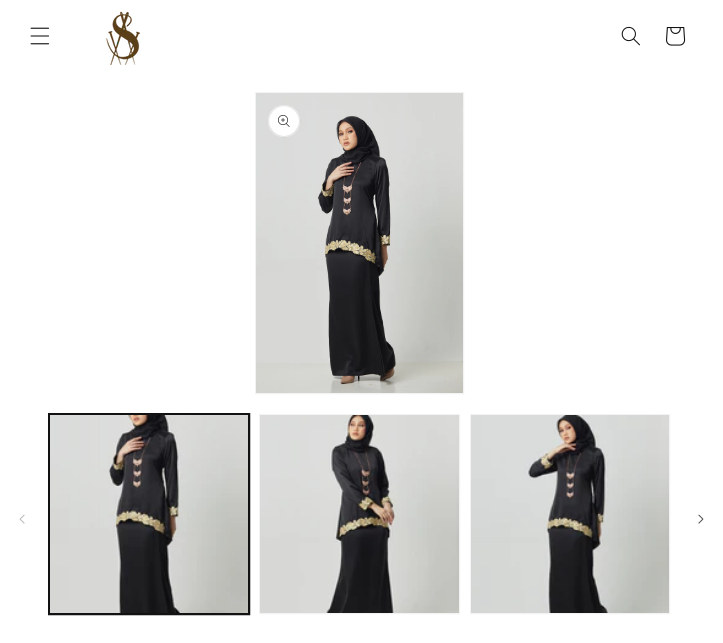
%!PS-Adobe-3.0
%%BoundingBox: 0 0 723 643
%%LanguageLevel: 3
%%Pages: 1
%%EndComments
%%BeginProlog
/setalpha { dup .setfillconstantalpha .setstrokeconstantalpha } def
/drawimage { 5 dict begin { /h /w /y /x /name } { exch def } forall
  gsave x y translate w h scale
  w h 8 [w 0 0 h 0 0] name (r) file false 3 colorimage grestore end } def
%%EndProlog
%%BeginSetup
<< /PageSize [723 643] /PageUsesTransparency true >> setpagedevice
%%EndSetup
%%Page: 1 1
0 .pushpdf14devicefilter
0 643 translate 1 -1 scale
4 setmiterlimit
1 setgray
0 0 723 643 rectfill
(images/1.raw) 30 27 20 18 drawimage
(images/2.raw) 106 11 35 54 drawimage
(images/3.raw) 621 26 19 20 drawimage
(images/4.raw) 666 27 20 19 drawimage
0.953 setgray
255.5 92.5 208 301 rectstroke
(images/5.raw) 256 93 207 300 drawimage
1 setgray
newpath 284 121 16 0 360 arc closepath fill
0.1 setalpha
0.071 setgray
newpath 284 121 15.5 0 360 arc closepath stroke
1 setalpha
(images/6.raw) 278 115 12 12 drawimage
(images/7.raw) 19 514 6 10 drawimage
48.5 413.5 201 201 rectstroke
49.5 414.5 199 199 rectstroke
(images/8.raw) 50 415 198 198 drawimage
0.953 setgray
259.5 414.5 200 199 rectstroke
(images/9.raw) 260 415 199 198 drawimage
470.5 414.5 199 199 rectstroke
(images/10.raw) 471 415 198 198 drawimage
(images/11.raw) 698 514 6 10 drawimage
.poppdf14devicefilter showpage
%%EOF
